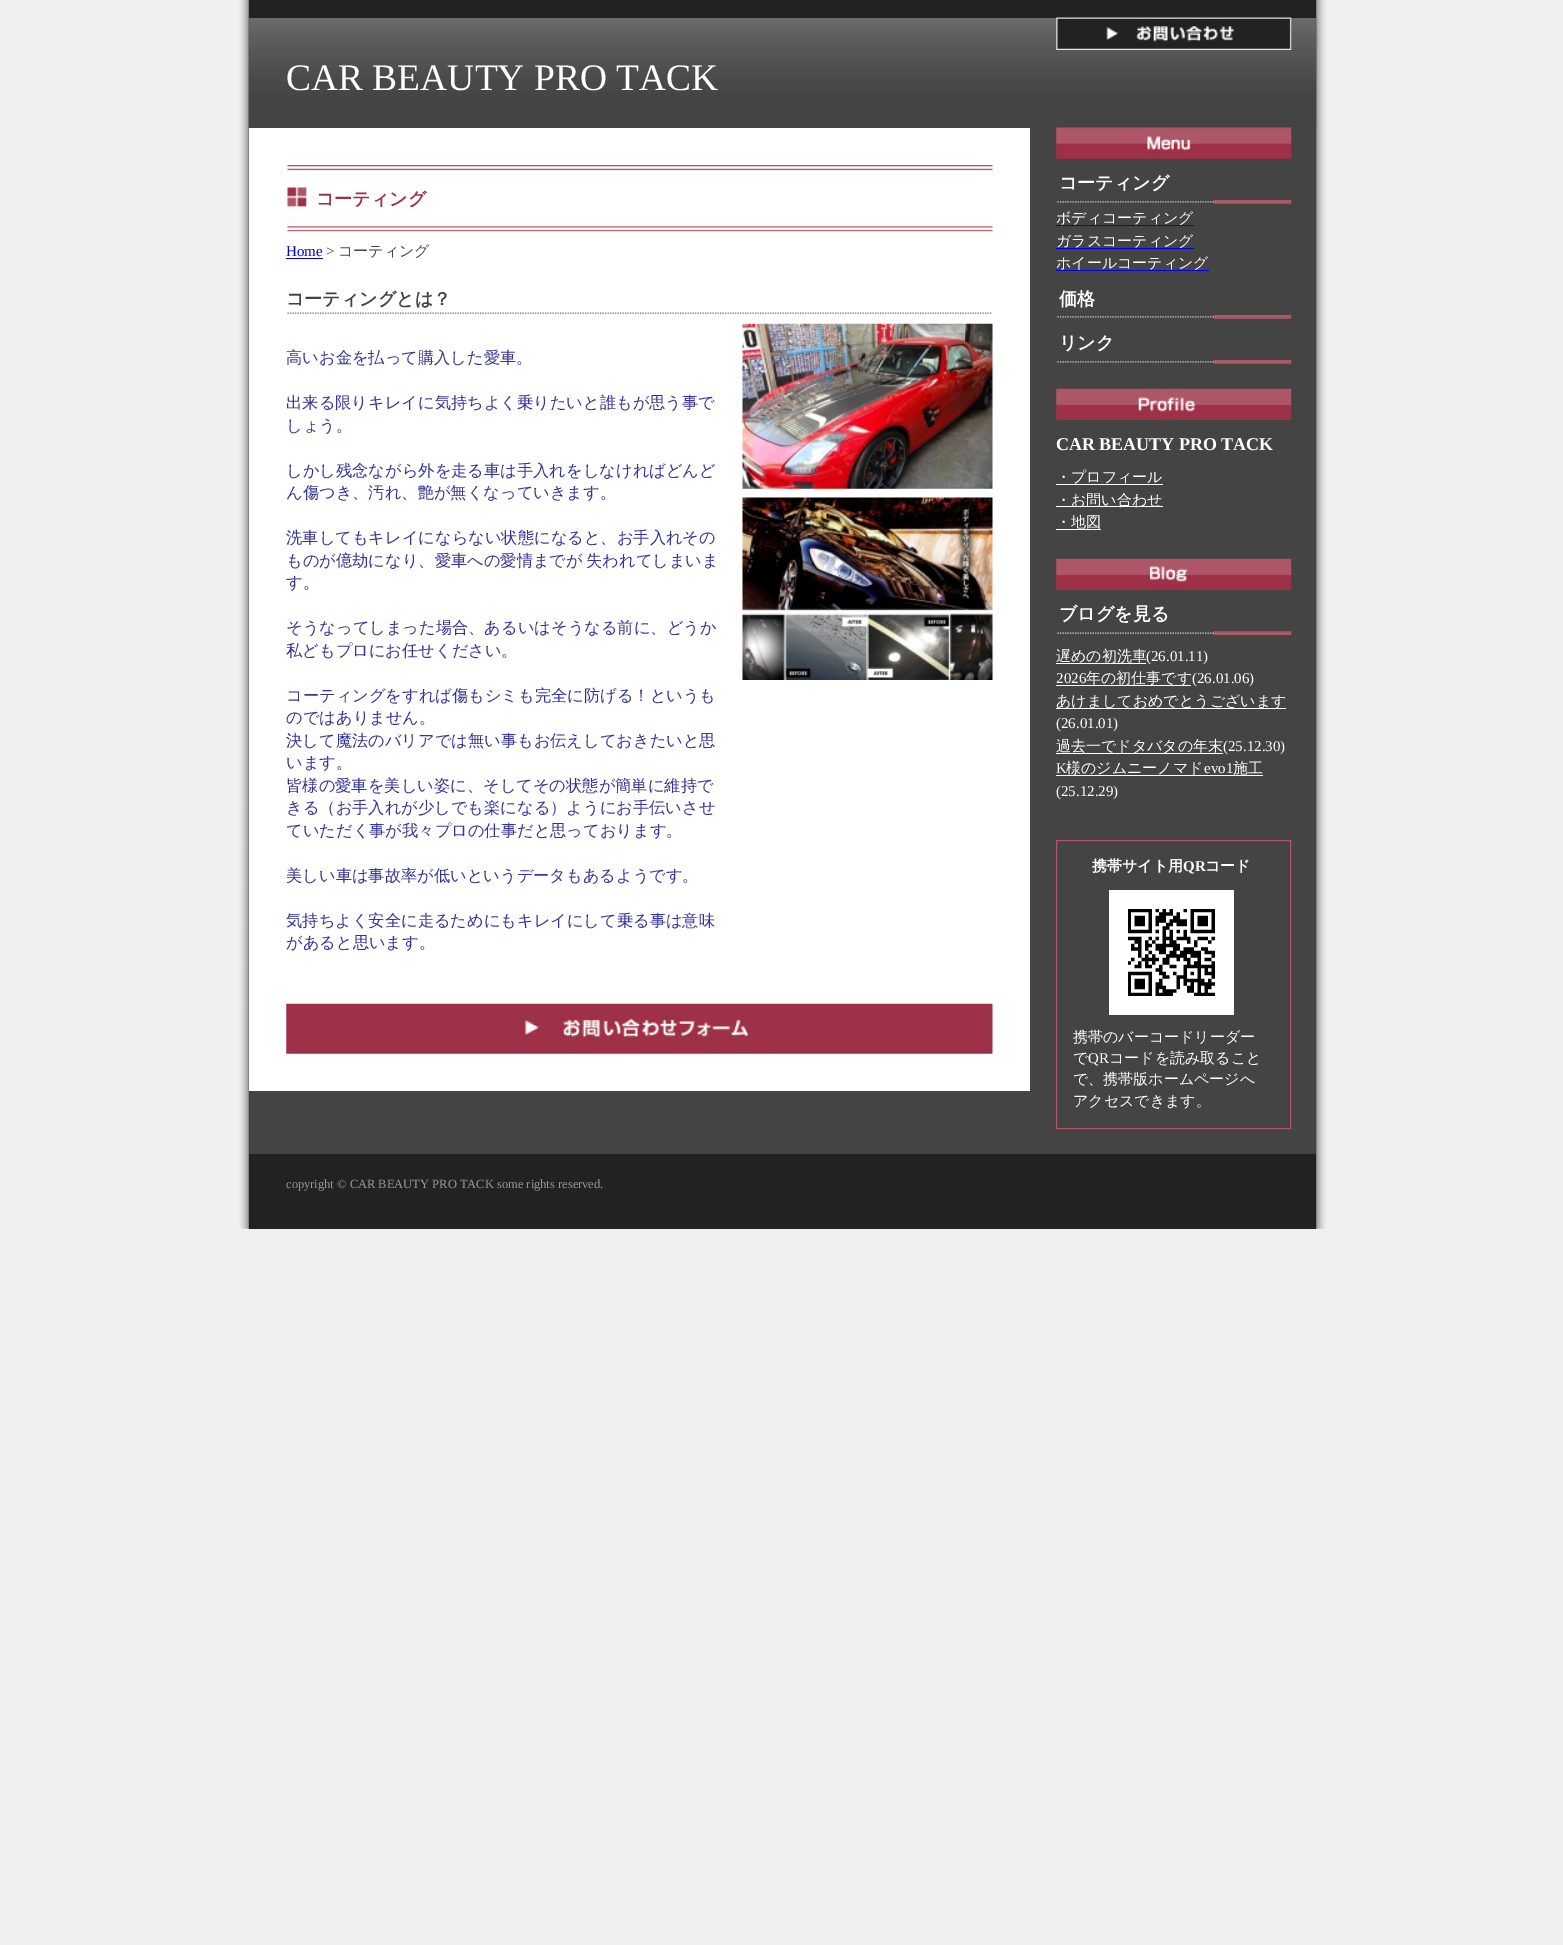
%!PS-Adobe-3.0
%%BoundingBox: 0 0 1563 1945
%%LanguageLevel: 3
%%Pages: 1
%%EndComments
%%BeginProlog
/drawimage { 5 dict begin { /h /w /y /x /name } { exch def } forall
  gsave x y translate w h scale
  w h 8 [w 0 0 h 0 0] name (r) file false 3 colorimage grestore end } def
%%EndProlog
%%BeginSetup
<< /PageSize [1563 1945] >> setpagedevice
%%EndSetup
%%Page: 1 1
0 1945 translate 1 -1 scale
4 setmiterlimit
0.941 setgray
0 0 1563 1945 rectfill
(images/1.raw) 239 0 1087 1229 drawimage
(images/2.raw) 248 17 1069 111 drawimage
0.133 setgray
249 0 1067 18 rectfill
(images/3.raw) 1056 17 236 33 drawimage
1 setgray
249 128 781 963 rectfill
(images/4.raw) 286 165 707 25 drawimage
(images/5.raw) 286 187 707 45 drawimage
0 0 0.933 setrgbcolor
286 258 37 1 rectfill
(images/6.raw) 287 312 705 2 drawimage
(images/7.raw) 742 323 251 166 drawimage
(images/8.raw) 742 497 251 183 drawimage
(images/9.raw) 286 1003 707 51 drawimage
(images/10.raw) 1056 127 236 32 drawimage
(images/11.raw) 1057 200 235 4 drawimage
1056 225 138 1 rectfill
1056 248 138 1 rectfill
1056 270 153 1 rectfill
(images/11.raw) 1057 315 235 4 drawimage
(images/11.raw) 1057 360 235 4 drawimage
(images/12.raw) 1056 388 236 32 drawimage
1 setgray
1056 484 107 1 rectfill
1056 506 107 1 rectfill
1056 529 45 1 rectfill
(images/13.raw) 1056 558 236 32 drawimage
(images/14.raw) 1057 631 235 4 drawimage
1056 663 90 1 rectfill
1056 685 135 1 rectfill
1056 708 230 1 rectfill
1056 753 167 1 rectfill
1056 775 207 1 rectfill
0.678 0.337 0.404 setrgbcolor
1056.5 840.5 234 288 rectstroke
1 setgray
1109 890 125 125 rectfill
(images/15.raw) 1128 909 87 87 drawimage
0.133 setgray
249 1154 1067 75 rectfill
/LiberationSerif-Regular [37.5 0 0 -37.5 0 0] selectfont
1 setgray
286 90 moveto (CAR BEAUTY PRO TACK) show
/WenQuanYiZenHei-Bold [18 0 0 -18 0 0] selectfont
0.62 0.192 0.278 setrgbcolor
316 205 moveto (コーティング) show
/LiberationSerif-Regular [15 0 0 -15 0 0] selectfont
0 0 0.933 setrgbcolor
286 256 moveto (Home) show
0.267 setgray
326 256 moveto (>) show
/WenQuanYiZenHei-Medium [15 0 0 -15 0 0] selectfont
338 256 moveto (コーティング) show
/WenQuanYiZenHei-Bold [18 0 0 -18 0 0] selectfont
286 305 moveto (コーティングとは？) show
/WenQuanYiZenHei-Medium [16.25 0 0 -16.25 0 0] selectfont
0.2 0.2 0.6 setrgbcolor
286 363 moveto (高いお金を払って購入した愛車。) show
286 408 moveto (出来る限りキレイに気持ちよく乗りたいと誰もが思う事で) show
286 431 moveto (しょう。) show
286 476 moveto (しかし残念ながら外を走る車は手入れをしなければどんど) show
286 498 moveto (ん傷つき、汚れ、艶が無くなっていきます。) show
286 543 moveto (洗車してもキレイにならない状態になると、お手入れその) show
286 566 moveto (ものが億劫になり、愛車への愛情までが) show
586 566 moveto (失われてしまいま) show
286 588 moveto (す。) show
286 633 moveto (そうなってしまった場合、あるいはそうなる前に、どうか) show
286 656 moveto (私どもプロにお任せください。) show
286 701 moveto (コーティングをすれば傷もシミも完全に防げる！というも) show
286 723 moveto (のではありません。) show
286 746 moveto (決して魔法のバリアでは無い事もお伝えしておきたいと思) show
286 768 moveto (います。) show
286 791 moveto (皆様の愛車を美しい姿に、そしてその状態が簡単に維持で) show
286 813 moveto (きる（お手入れが少しでも楽になる）ようにお手伝いさせ) show
286 836 moveto (ていただく事が我々プロの仕事だと思っております。) show
286 881 moveto (美しい車は事故率が低いというデータもあるようです。) show
286 926 moveto (気持ちよく安全に走るためにもキレイにして乗る事は意味) show
286 948 moveto (があると思います。) show
/WenQuanYiZenHei-Bold [18 0 0 -18 0 0] selectfont
1 setgray
1059 189 moveto (コーティング) show
/WenQuanYiZenHei-Medium [15 0 0 -15 0 0] selectfont
1056 223 moveto (ボディコーティング) show
1056 246 moveto (ガラスコーティング) show
1056 268 moveto (ホイールコーティング) show
/WenQuanYiZenHei-Bold [18 0 0 -18 0 0] selectfont
1059 305 moveto (価格) show
1059 349 moveto (リンク) show
/LiberationSerif-Bold [18 0 0 -18 0 0] selectfont
1056 450 moveto (CAR BEAUTY PRO TACK) show
/WenQuanYiZenHei-Medium [15 0 0 -15 0 0] selectfont
1056 482 moveto (・プロフィール) show
1056 505 moveto (・お問い合わせ) show
1056 527 moveto (・地図) show
/WenQuanYiZenHei-Bold [18 0 0 -18 0 0] selectfont
1059 620 moveto (ブログを見る) show
/WenQuanYiZenHei-Medium [15 0 0 -15 0 0] selectfont
1056 661 moveto (遅めの初洗車) show
/LiberationSerif-Regular [15 0 0 -15 0 0] selectfont
1146 661 moveto (\(26.01.11\)) show
1056 683 moveto (2026) show
/WenQuanYiZenHei-Medium [15 0 0 -15 0 0] selectfont
1086 683 moveto (年の初仕事です) show
/LiberationSerif-Regular [15 0 0 -15 0 0] selectfont
1192 683 moveto (\(26.01.06\)) show
/WenQuanYiZenHei-Medium [15 0 0 -15 0 0] selectfont
1056 706 moveto (あけましておめでとうございます) show
/LiberationSerif-Regular [15 0 0 -15 0 0] selectfont
1056 728 moveto (\(26.01.01\)) show
/WenQuanYiZenHei-Medium [15 0 0 -15 0 0] selectfont
1056 751 moveto (過去一でドタバタの年末) show
/LiberationSerif-Regular [15 0 0 -15 0 0] selectfont
1223 751 moveto (\(25.12.30\)) show
1056 773 moveto (K) show
/WenQuanYiZenHei-Medium [15 0 0 -15 0 0] selectfont
1066 773 moveto (様のジムニーノマド) show
/LiberationSerif-Regular [15 0 0 -15 0 0] selectfont
1204 773 moveto (evo1) show
/WenQuanYiZenHei-Medium [15 0 0 -15 0 0] selectfont
1233 773 moveto (施工) show
/LiberationSerif-Regular [15 0 0 -15 0 0] selectfont
1056 796 moveto (\(25.12.29\)) show
/WenQuanYiZenHei-Bold [15 0 0 -15 0 0] selectfont
1092 871 moveto (携帯サイト用) show
/LiberationSerif-Bold [15 0 0 -15 0 0] selectfont
1183 871 moveto (QR) show
/WenQuanYiZenHei-Bold [15 0 0 -15 0 0] selectfont
1205 871 moveto (コード) show
/WenQuanYiZenHei-Medium [15 0 0 -15 0 0] selectfont
1073 1042 moveto (携帯のバーコードリーダー) show
1073 1063 moveto (で) show
/LiberationSerif-Regular [15 0 0 -15 0 0] selectfont
1088 1063 moveto (QR) show
/WenQuanYiZenHei-Medium [15 0 0 -15 0 0] selectfont
1109 1063 moveto (コードを読み取ること) show
1073 1084 moveto (で、携帯版ホームページへ) show
1073 1106 moveto (アクセスできます。) show
/LiberationSerif-Regular [12.5 0 0 -12.5 0 0] selectfont
0.6 setgray
286 1188 moveto (copyright © CAR BEAUTY PRO TACK some rights reserved.) show
showpage
%%EOF
